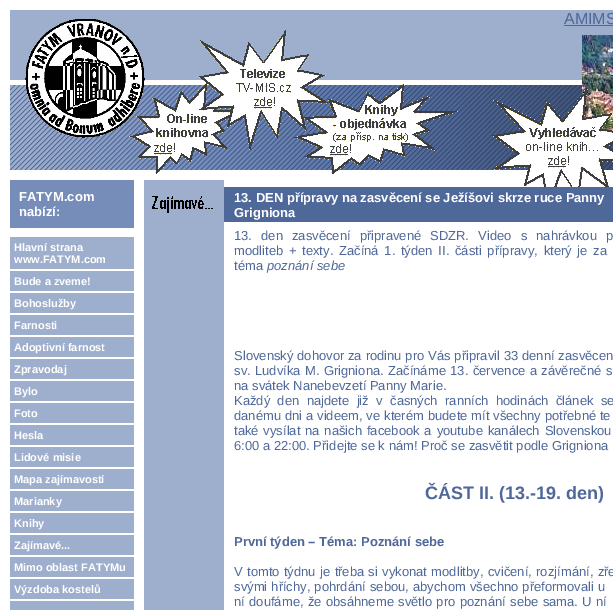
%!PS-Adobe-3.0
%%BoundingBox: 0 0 613 610
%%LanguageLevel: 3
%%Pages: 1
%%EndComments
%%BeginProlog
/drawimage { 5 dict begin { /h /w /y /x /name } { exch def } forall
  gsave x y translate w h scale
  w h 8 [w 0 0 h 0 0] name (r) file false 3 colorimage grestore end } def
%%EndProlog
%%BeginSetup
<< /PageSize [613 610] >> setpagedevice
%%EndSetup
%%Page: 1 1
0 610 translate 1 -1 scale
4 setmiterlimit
1 setgray
0 0 613 610 rectfill
0.62 0.682 0.804 setrgbcolor
10 10 603 70 rectfill
(images/7.raw) 10 85 603 85 drawimage
(images/1.raw) 25 19 120 119 drawimage
(images/3.raw) 129 83 102 91 drawimage
(images/4.raw) 294 84 164 90 drawimage
(images/2.raw) 199 30 129 120 drawimage
0.31 0.408 0.604 setrgbcolor
564 25 49 1 rectfill
(images/5.raw) 582 35 31 96 drawimage
(images/6.raw) 492 89 121 98 drawimage
0.463 0.553 0.725 setrgbcolor
10 180 124 48 rectfill
0.62 0.682 0.804 setrgbcolor
10 237 124 32 rectfill
10 271 124 20 rectfill
10 293 124 20 rectfill
10 315 124 20 rectfill
10 337 124 20 rectfill
10 359 124 20 rectfill
10 381 124 20 rectfill
10 403 124 20 rectfill
10 425 124 20 rectfill
10 447 124 20 rectfill
10 469 124 20 rectfill
10 491 124 20 rectfill
10 513 124 20 rectfill
10 535 124 20 rectfill
10 557 124 20 rectfill
10 579 124 20 rectfill
10 601 124 9 rectfill
144 180 80 430 rectfill
(images/8.raw) 152 196 61 17 drawimage
0.31 0.408 0.604 setrgbcolor
224 187 389 35 rectfill
/LiberationSans-Regular [16 0 0 -16 0 0] selectfont
564 24 moveto (AMIMS) show
/LiberationSans-Bold [13 0 0 -13 0 0] selectfont
1 setgray
19 201 moveto (FATYM.com) show
19 216 moveto (nabízí:) show
/LiberationSans-Bold [11 0 0 -11 0 0] selectfont
14 251 moveto (Hlavní strana) show
14 263 moveto (www.FATYM.com) show
14 285 moveto (Bude a zveme!) show
14 307 moveto (Bohoslužby) show
14 329 moveto (Farnosti) show
14 351 moveto (Adoptivní farnost) show
14 373 moveto (Zpravodaj) show
14 395 moveto (Bylo) show
14 417 moveto (Foto) show
14 439 moveto (Hesla) show
14 461 moveto (Lidové misie) show
14 483 moveto (Mapa zajímavostí) show
14 505 moveto (Marianky) show
14 527 moveto (Knihy) show
14 549 moveto (Zajímavé...) show
14 571 moveto (Mimo oblast FATYMu) show
14 593 moveto (Výzdoba kostelů) show
/LiberationSans-Bold [13 0 0 -13 0 0] selectfont
234 202 moveto (13. DEN přípravy na zasvěcení se Ježíšovi skrze ruce Panny) show
234 217 moveto (Grigniona) show
/LiberationSans-Regular [13 0 0 -13 0 0] selectfont
0.31 0.408 0.604 setrgbcolor
234 240 moveto 5.5 0 32 (13. den zasvěcení připravené SDZR. Video s nahrávkou p) widthshow
234 255 moveto 2.1 0 32 (modliteb + texty. Začíná 1. týden II. části přípravy, který je za) widthshow
234 270 moveto (téma) show
/LiberationSans-Italic [13 0 0 -13 0 0] selectfont
267 270 moveto (poznání sebe) show
/LiberationSans-Regular [13 0 0 -13 0 0] selectfont
234 360 moveto 0.25 0 32 (Slovenský dohovor za rodinu pro Vás připravil 33 denní zasvěcen) widthshow
234 375 moveto 0.75 0 32 (sv. Ludvíka M. Grigniona. Začínáme 13. července a závěrečné s) widthshow
234 390 moveto (na svátek Nanebevzetí Panny Marie.) show
234 405 moveto 3.75 0 32 (Každý den najdete již v časných ranních hodinách článek se) widthshow
234 420 moveto 0.25 0 32 (danému dni a videem, ve kterém budete mít všechny potřebné te) widthshow
234 435 moveto 1.25 0 32 (také vysílat na našich facebook a youtube kanálech Slovenskou) widthshow
234 450 moveto (6:00 a 22:00. Přidejte se k nám! Proč se zasvětit podle Grigniona) show
/LiberationSans-Bold [18 0 0 -18 0 0] selectfont
425 499 moveto (ČÁST II. \(13.-19. den\)) show
/LiberationSans-Bold [13 0 0 -13 0 0] selectfont
234 546 moveto (První týden – Téma: Poznání sebe) show
/LiberationSans-Regular [13 0 0 -13 0 0] selectfont
234 576 moveto 0.75 0 32 (V tomto týdnu je třeba si vykonat modlitby, cvičení, rozjímání, zře) widthshow
234 591 moveto 0.5 0 32 (svými hříchy, pohrdání sebou, abychom všechno přeformovali u) widthshow
234 606 moveto 0.75 0 32 (ní doufáme, že obsáhneme světlo pro poznání sebe sama. U ní) widthshow
showpage
%%EOF
